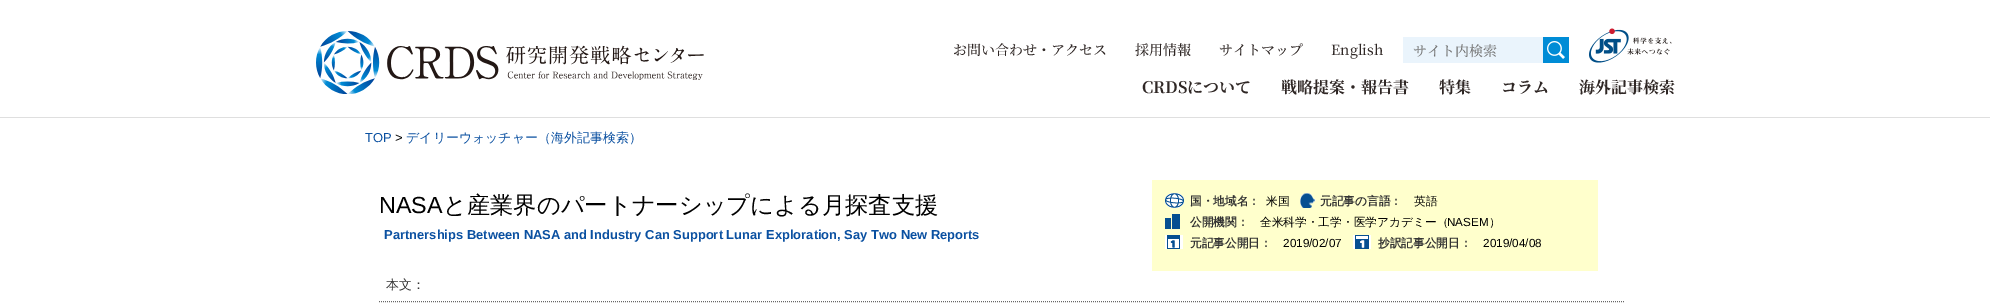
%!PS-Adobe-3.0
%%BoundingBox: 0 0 1990 308
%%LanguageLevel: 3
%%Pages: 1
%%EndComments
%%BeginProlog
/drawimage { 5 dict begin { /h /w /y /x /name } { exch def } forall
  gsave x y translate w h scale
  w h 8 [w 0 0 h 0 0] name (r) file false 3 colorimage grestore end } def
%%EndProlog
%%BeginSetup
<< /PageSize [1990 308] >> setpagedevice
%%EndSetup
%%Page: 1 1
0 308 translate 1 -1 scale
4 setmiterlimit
1 setgray
0 0 1990 308 rectfill
0.875 setgray
0 117 1990 1 rectfill
(images/1.raw) 316 31 388 63 drawimage
0.918 0.957 0.988 setrgbcolor
1403 37 140 26 rectfill
0 0.549 0.839 setrgbcolor
1543 37 26 26 rectfill
(images/2.raw) 1547 41 18 18 drawimage
(images/3.raw) 1589 28 83 35 drawimage
1 1 0.8 setrgbcolor
1152 180 446 91 rectfill
(images/4.raw) 1165 193 19 15 drawimage
(images/5.raw) 1300 193 16 15 drawimage
(images/6.raw) 1165 214 15 15 drawimage
(images/7.raw) 1165 235 18 14 drawimage
(images/8.raw) 1353 235 18 14 drawimage
0.4 setgray
[1 1] 0 setdash
newpath 379 301.5 moveto 1624 301.5 lineto stroke
/NotoSerifJP-Medium [14 0 0 -14 0 0] selectfont
0.184 0.153 0.145 setrgbcolor
953 55 moveto (お問い合わせ・アクセス) show
1135 55 moveto (採用情報) show
1219 55 moveto (サイトマップ) show
1331 55 moveto (English) show
0.459 setgray
1413 56 moveto (サイト内検索) show
/NotoSerifJP-Bold [16 0 0 -16 0 0] selectfont
0.184 0.153 0.145 setrgbcolor
1142 93 moveto (CRDSについて) show
1281 93 moveto (戦略提案・報告書) show
1439 93 moveto (特集) show
1501 93 moveto (コラム) show
1579 93 moveto (海外記事検索) show
/LiberationSans-Regular [12.95 0 0 -12.95 0 0] selectfont
0.039 0.314 0.631 setrgbcolor
365 142 moveto (TOP) show
0 setgray
395 142 moveto (>) show
/WenQuanYiZenHei-Medium [12.95 0 0 -12.95 0 0] selectfont
0.039 0.314 0.631 setrgbcolor
406 142 moveto (デイリーウォッチャー（海外記事検索）) show
/LiberationSans-Regular [23.3 0 0 -23.3 0 0] selectfont
0 setgray
379 213 moveto (NASA) show
/WenQuanYiZenHei-Medium [23.3 0 0 -23.3 0 0] selectfont
443 213 moveto (と産業界のパートナーシップによる月探査支援) show
/LiberationSans-Bold [12.95 0 0 -12.95 0 0] selectfont
0.039 0.314 0.631 setrgbcolor
384 239 moveto (Partnerships Between NASA and Industry Can Support Lunar Exploration, Say Two New Reports) show
/WenQuanYiZenHei-Bold [11.7 0 0 -11.7 0 0] selectfont
0.2 setgray
1190 205 moveto (国・地域名：) show
/WenQuanYiZenHei-Medium [11.7 0 0 -11.7 0 0] selectfont
0 setgray
1266 205 moveto (米国) show
/WenQuanYiZenHei-Bold [11.7 0 0 -11.7 0 0] selectfont
0.2 setgray
1320 205 moveto (元記事の言語：) show
/WenQuanYiZenHei-Medium [11.7 0 0 -11.7 0 0] selectfont
0 setgray
1414 205 moveto (英語) show
/WenQuanYiZenHei-Bold [11.7 0 0 -11.7 0 0] selectfont
0.2 setgray
1190 226 moveto (公開機関：) show
/WenQuanYiZenHei-Medium [11.7 0 0 -11.7 0 0] selectfont
0 setgray
1260 226 moveto (全米科学・工学・医学アカデミー（) show
/LiberationSans-Regular [11.7 0 0 -11.7 0 0] selectfont
1447 226 moveto (NASEM) show
/WenQuanYiZenHei-Medium [11.7 0 0 -11.7 0 0] selectfont
1489 226 moveto (）) show
/WenQuanYiZenHei-Bold [11.7 0 0 -11.7 0 0] selectfont
0.2 setgray
1190 247 moveto (元記事公開日：) show
/LiberationSans-Regular [11.7 0 0 -11.7 0 0] selectfont
0 setgray
1283 247 moveto (2019/02/07) show
/WenQuanYiZenHei-Bold [11.7 0 0 -11.7 0 0] selectfont
0.2 setgray
1378 247 moveto (抄訳記事公開日：) show
/LiberationSans-Regular [11.7 0 0 -11.7 0 0] selectfont
0 setgray
1483 247 moveto (2019/04/08) show
/WenQuanYiZenHei-Medium [12.95 0 0 -12.95 0 0] selectfont
0.2 setgray
386 289 moveto (本文：) show
showpage
%%EOF
